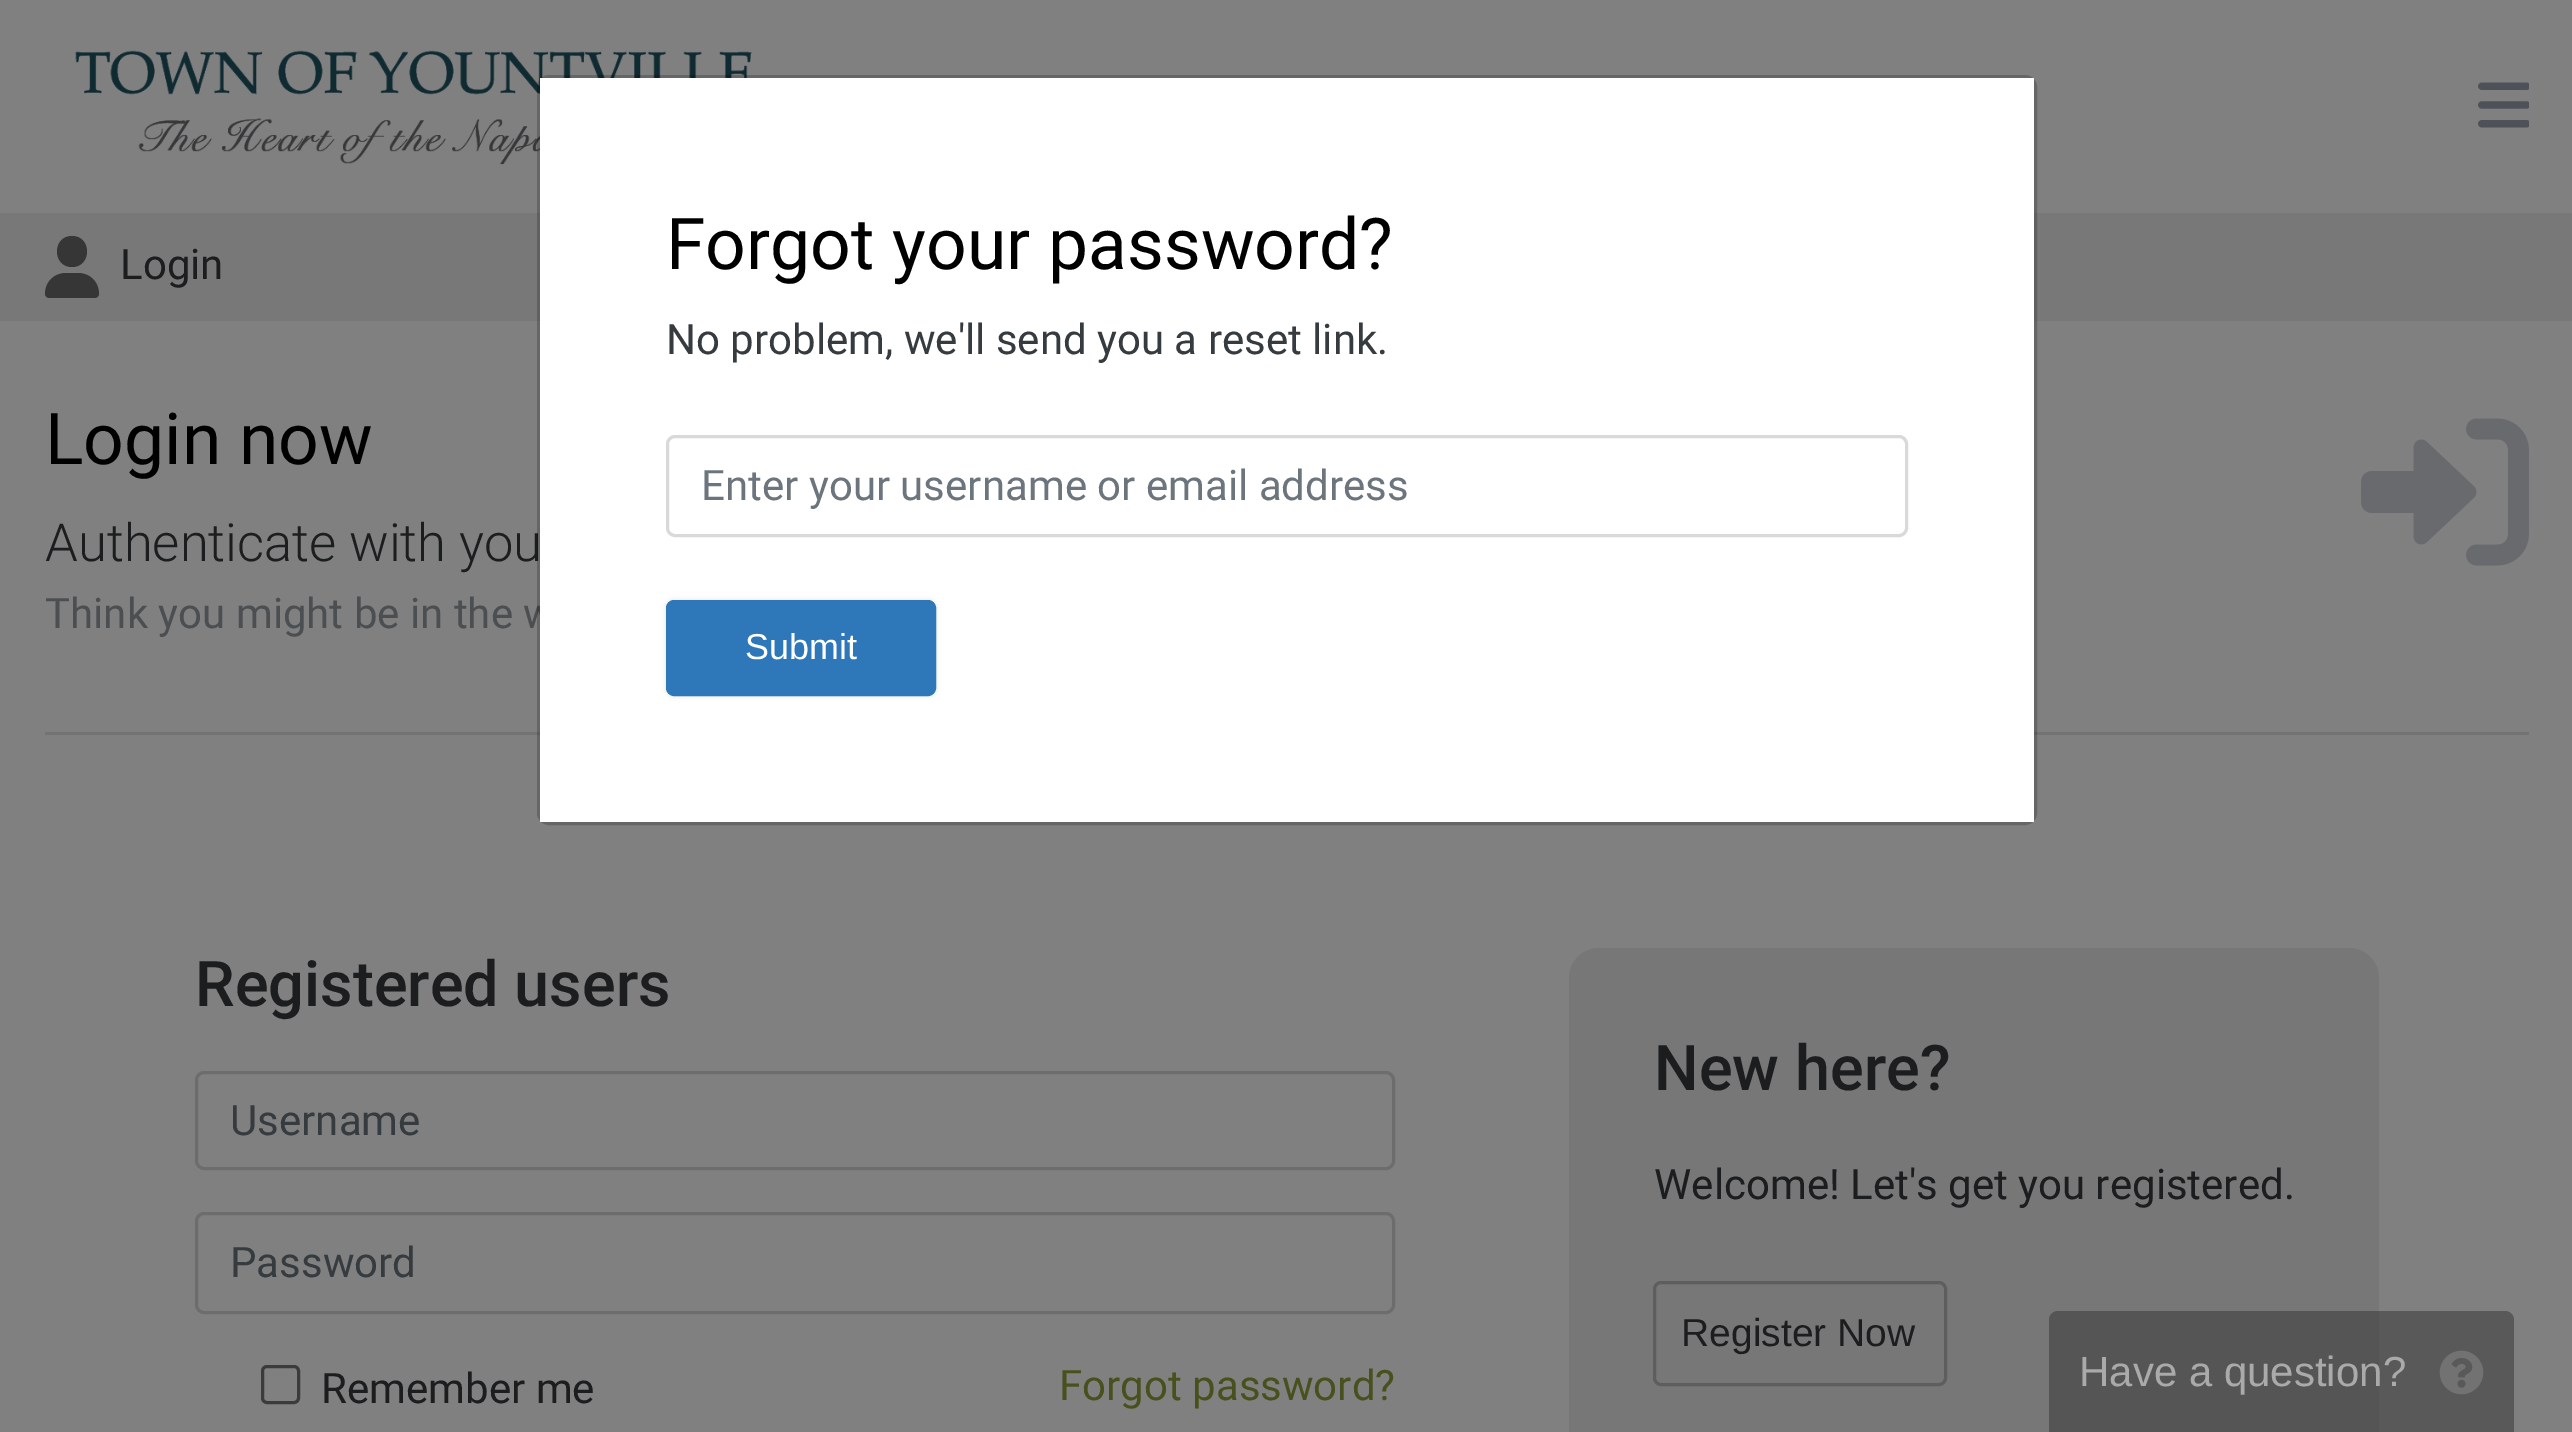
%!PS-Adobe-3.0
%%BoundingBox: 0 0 2572 1432
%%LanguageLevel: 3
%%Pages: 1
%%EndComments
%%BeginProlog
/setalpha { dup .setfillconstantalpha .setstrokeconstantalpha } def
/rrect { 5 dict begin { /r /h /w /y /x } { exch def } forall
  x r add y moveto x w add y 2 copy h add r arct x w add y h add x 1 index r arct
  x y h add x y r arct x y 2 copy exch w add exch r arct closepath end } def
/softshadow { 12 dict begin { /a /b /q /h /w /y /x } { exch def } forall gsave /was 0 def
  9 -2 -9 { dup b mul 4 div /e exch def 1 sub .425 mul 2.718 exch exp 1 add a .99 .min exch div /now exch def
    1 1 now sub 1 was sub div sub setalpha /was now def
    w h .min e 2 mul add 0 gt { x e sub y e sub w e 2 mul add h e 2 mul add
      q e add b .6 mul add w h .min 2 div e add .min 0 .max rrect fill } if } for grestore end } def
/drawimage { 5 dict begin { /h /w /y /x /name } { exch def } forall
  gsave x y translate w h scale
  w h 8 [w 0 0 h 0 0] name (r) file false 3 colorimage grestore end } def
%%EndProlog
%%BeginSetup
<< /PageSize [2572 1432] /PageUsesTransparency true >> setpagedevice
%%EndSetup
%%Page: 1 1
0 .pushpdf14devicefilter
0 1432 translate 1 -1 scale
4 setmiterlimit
0.502 setgray
0 0 2572 1432 rectfill
(images/1.raw) 75 50 677 115 drawimage
(images/2.raw) 2478 82 51 46 drawimage
0.451 setgray
45 732 2484 3 rectfill
(images/3.raw) 2361 418 168 148 drawimage
0.427 setgray
3 setlinewidth
196.5 1072.5 1197 96 7.5 rrect stroke
196.5 1213.5 1197 99 7.5 rrect stroke
0.231 setgray
262.5 1366.5 36 36 4.5 rrect stroke
0.467 setgray
1569 948 810 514 30 rrect fill
0.369 setgray
1654.5 1282.5 291 102 6.5 rrect stroke
0.471 setgray
0 213 2572 108 rectfill
0.212 setgray
newpath 72 267 moveto 92 267 92 236 72 236 curveto 52 236 52 267 72 267 curveto closepath 78 273 moveto 66 273 lineto 54 273 45 282 45 294 curveto 45 296 47 298 49 298 curveto 95 298 lineto 97 298 99 296 99 294 curveto 99 282 90 273 78 273 curveto closepath fill
0.5 setalpha
0.2 setgray
newpath 2058 1311 moveto 2505 1311 lineto 2510 1311 2514 1315 2514 1320 curveto 2514 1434 lineto 2049 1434 lineto 2049 1320 lineto 2049 1315 2053 1311 2058 1311 curveto closepath fill
1 setalpha
(images/4.raw) 2439 1350 45 45 drawimage
/Roboto-Regular [71.4 0 0 -71.4 0 0] selectfont
0 setgray
45 464 moveto (Login now) show
/Roboto-Light [52.5 0 0 -52.5 0 0] selectfont
0.11 0.114 0.118 setrgbcolor
45 561 moveto (Authenticate with you) show
/Roboto-Regular [42 0 0 -42 0 0] selectfont
0.298 0.31 0.322 setrgbcolor
45 628 moveto (Think you might be in the w) show
0.2 setalpha
0 setgray
538.5 76.5 1497 747 10.5 rrect stroke
1 setalpha
1 setgray
540 78 1494 744 rectfill
/Roboto-Regular [71.4 0 0 -71.4 0 0] selectfont
0 setgray
666 269 moveto (Forgot your password?) show
/Roboto-Regular [42 0 0 -42 0 0] selectfont
0.212 0.231 0.247 setrgbcolor
666 354 moveto (No problem, we'll send you a reset link.) show
0.851 setgray
667.5 436.5 1239 99 7.5 rrect stroke
0.424 0.459 0.49 setrgbcolor
701 500 moveto (Enter your username or email address) show
0 setgray
666 600 270 96 8 3 0.1 softshadow
0.18 0.471 0.729 setrgbcolor
667.5 601.5 267 93 6.5 rrect gsave fill grestore
stroke
/LiberationSans-Regular [36 0 0 -36 0 0] selectfont
1 setgray
745 659 moveto (Submit) show
/Roboto-Medium [63 0 0 -63 0 0] selectfont
0.11 0.114 0.118 setrgbcolor
195 1006 moveto (Registered users) show
/Roboto-Regular [42 0 0 -42 0 0] selectfont
0.212 0.231 0.247 setrgbcolor
230 1135 moveto (Username) show
230 1277 moveto (Password) show
0.11 0.114 0.118 setrgbcolor
321 1403 moveto (Remember me) show
0.282 0.318 0.118 setrgbcolor
1059 1400 moveto (Forgot password?) show
/Roboto-Medium [63 0 0 -63 0 0] selectfont
0.11 0.114 0.118 setrgbcolor
1654 1090 moveto (New here?) show
/Roboto-Regular [42 0 0 -42 0 0] selectfont
1654 1199 moveto (Welcome! Let's get you registered.) show
/LiberationSans-Regular [39 0 0 -39 0 0] selectfont
1681 1346 moveto (Register Now) show
/Roboto-Regular [42 0 0 -42 0 0] selectfont
120 279 moveto (Login) show
/LiberationSans-Regular [42 0 0 -42 0 0] selectfont
0.667 setgray
2079 1386 moveto (Have a question?) show
.poppdf14devicefilter showpage
%%EOF
